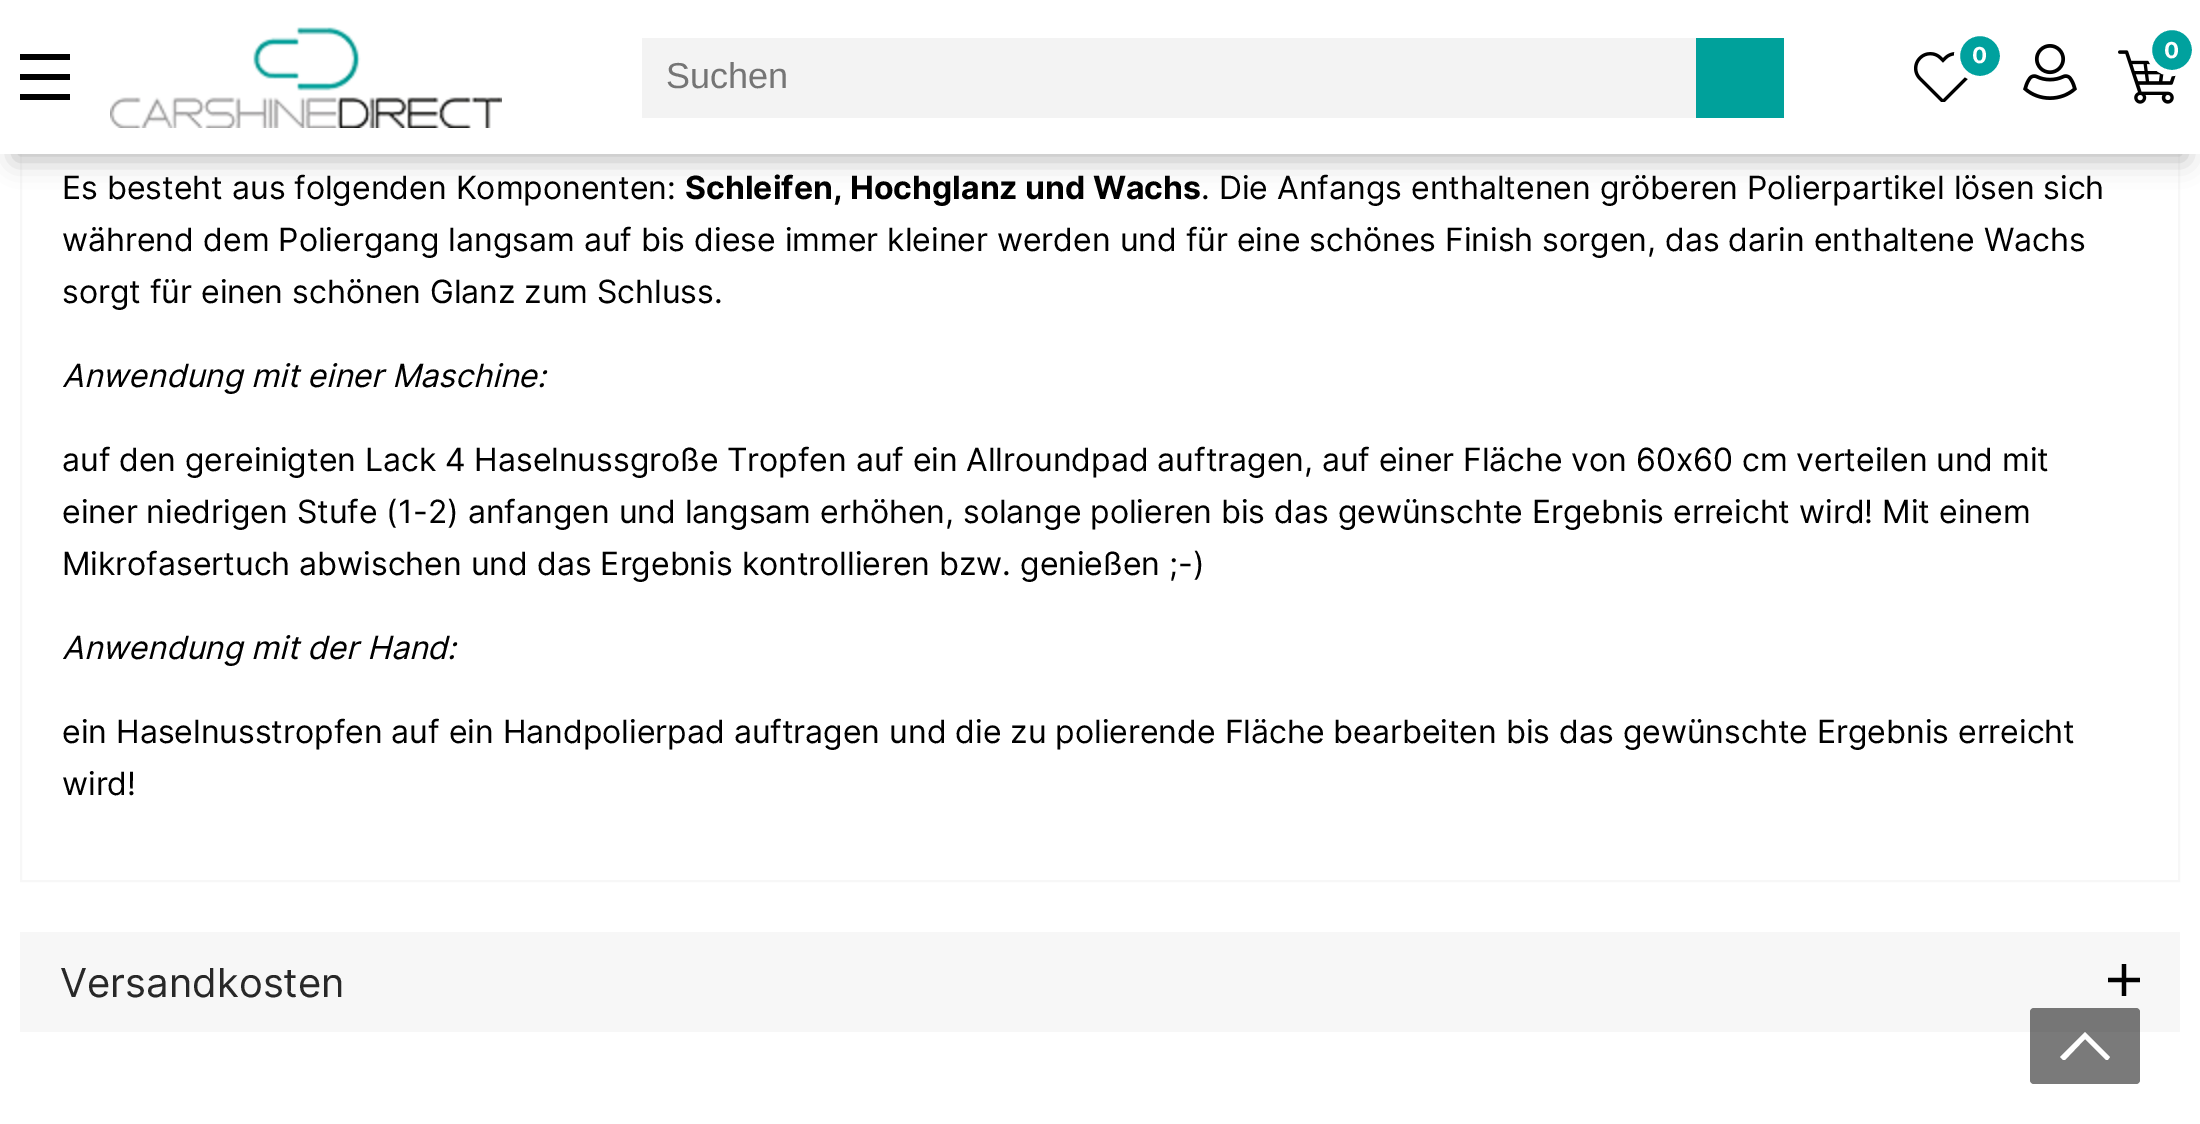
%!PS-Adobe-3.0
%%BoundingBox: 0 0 2200 1124
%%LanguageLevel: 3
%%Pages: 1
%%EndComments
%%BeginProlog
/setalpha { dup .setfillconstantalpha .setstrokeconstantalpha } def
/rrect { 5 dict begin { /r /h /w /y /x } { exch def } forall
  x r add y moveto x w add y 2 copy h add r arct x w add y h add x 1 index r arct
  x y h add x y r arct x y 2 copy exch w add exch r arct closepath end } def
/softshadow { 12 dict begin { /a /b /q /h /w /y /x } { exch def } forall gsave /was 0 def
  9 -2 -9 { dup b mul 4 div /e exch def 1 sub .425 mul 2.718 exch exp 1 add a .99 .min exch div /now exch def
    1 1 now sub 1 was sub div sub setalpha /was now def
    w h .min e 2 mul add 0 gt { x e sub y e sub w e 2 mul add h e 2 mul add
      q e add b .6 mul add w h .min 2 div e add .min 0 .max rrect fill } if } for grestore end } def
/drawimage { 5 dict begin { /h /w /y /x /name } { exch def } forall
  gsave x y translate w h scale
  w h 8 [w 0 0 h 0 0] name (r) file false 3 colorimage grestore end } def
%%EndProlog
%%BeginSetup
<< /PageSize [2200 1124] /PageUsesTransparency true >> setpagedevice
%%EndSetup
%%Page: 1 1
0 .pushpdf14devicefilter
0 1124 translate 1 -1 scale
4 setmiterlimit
1 setgray
0 0 2200 1124 rectfill
0.969 setgray
2 setlinewidth
21 -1 2158 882 rectstroke
0.733 setgray
14 34 2172 126 0 13 1 softshadow
1 setgray
0 0 2200 154 rectfill
0 setgray
newpath 20 54 moveto 70 54 lineto 70 60 lineto 20 60 lineto closepath 20 74 moveto 70 74 lineto 70 80 lineto 20 80 lineto closepath 20 94 moveto 70 94 lineto 70 100 lineto 20 100 lineto closepath eofill
(images/1.raw) 110 27 392 101 drawimage
(images/2.raw) 1914 52 54 50 drawimage
0 0.631 0.62 setrgbcolor
newpath 1980 56 23 0 360 arc closepath gsave fill grestore
1 setgray
6 setlinewidth
stroke
(images/3.raw) 2023 44 54 56 drawimage
(images/4.raw) 2118 50 58 54 drawimage
0 0.631 0.62 setrgbcolor
newpath 2172 50 23 0 360 arc closepath gsave fill grestore
1 setgray
stroke
0.953 setgray
642 38 1054 80 rectfill
0 0.631 0.608 setrgbcolor
1696 38 88 80 rectfill
0.969 setgray
20 932 2160 100 rectfill
(images/5.raw) 2108 964 32 32 drawimage
0.52 setalpha
0 setgray
2030 1008 110 76 4 rrect fill
gsave
2060 1032 50 28 rectclip
1 setalpha
1 setgray
newpath 2085 1032 moveto 2060 1057 lineto 2064 1061 lineto 2085 1039 lineto 2107 1061 lineto 2110 1057 lineto closepath fill
grestore
/Inter-Bold [22 0 0 -22 0 0] selectfont
1 setalpha
1 setgray
1972 63 moveto (0) show
2164 58 moveto (0) show
/LiberationSans-Regular [36 0 0 -36 0 0] selectfont
0.459 setgray
666 88 moveto (Suchen) show
/Inter-Regular [32 0 0 -32 0 0] selectfont
0 setgray
62 199 moveto (Es besteht aus folgenden Komponenten:) show
/Inter-Bold [32 0 0 -32 0 0] selectfont
685 199 moveto (Schleifen, Hochglanz und Wachs) show
/Inter-Regular [32 0 0 -32 0 0] selectfont
1201 199 moveto (. Die Anfangs enthaltenen gröberen Polierpartikel lösen sich) show
62 251 moveto (während dem Poliergang langsam auf bis diese immer kleiner werden und für eine schönes Finish sorgen, das darin enthaltene Wachs) show
62 303 moveto (sorgt für einen schönen Glanz zum Schluss.) show
/Inter-Italic [32 0 0 -32 0 0] selectfont
62 387 moveto (Anwendung mit einer Maschine:) show
/Inter-Regular [32 0 0 -32 0 0] selectfont
62 471 moveto -0.25 0 32 (auf den gereinigten Lack 4 Haselnussgroße Tropfen auf ein Allroundpad auftragen, auf einer Fläche von 60x60 cm verteilen und mit) widthshow
62 523 moveto (einer niedrigen Stufe \(1-2\) anfangen und langsam erhöhen, solange polieren bis das gewünschte Ergebnis erreicht wird! Mit einem) show
62 575 moveto (Mikrofasertuch abwischen und das Ergebnis kontrollieren bzw. genießen ;-\)) show
/Inter-Italic [32 0 0 -32 0 0] selectfont
62 659 moveto (Anwendung mit der Hand:) show
/Inter-Regular [32 0 0 -32 0 0] selectfont
62 743 moveto (ein Haselnusstropfen auf ein Handpolierpad auftragen und die zu polierende Fläche bearbeiten bis das gewünschte Ergebnis erreicht) show
62 795 moveto (wird!) show
/Inter-Regular [40 0 0 -40 0 0] selectfont
0.157 setgray
60 997 moveto (Versandkosten) show
.poppdf14devicefilter showpage
%%EOF
